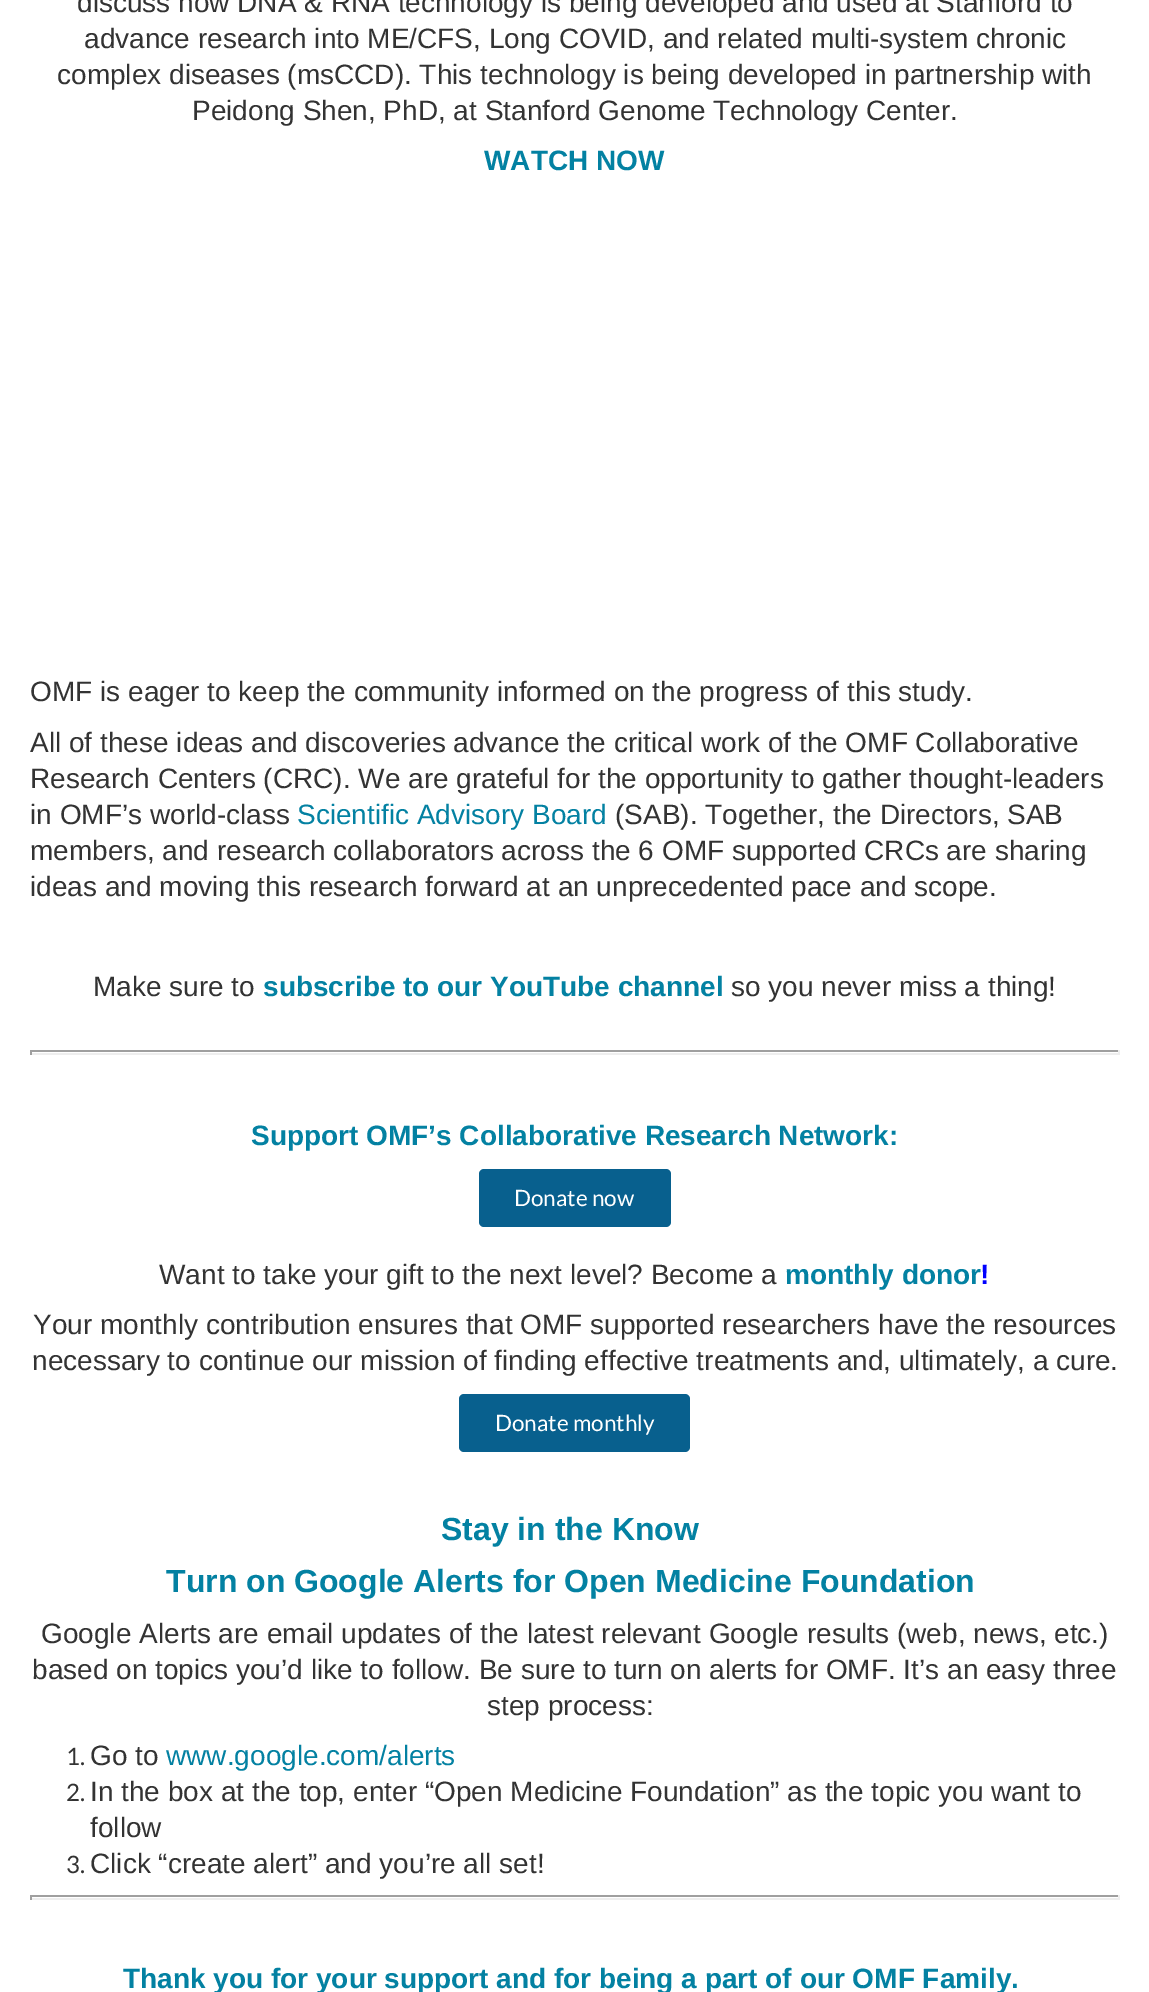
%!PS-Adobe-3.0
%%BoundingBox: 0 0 1149 1992
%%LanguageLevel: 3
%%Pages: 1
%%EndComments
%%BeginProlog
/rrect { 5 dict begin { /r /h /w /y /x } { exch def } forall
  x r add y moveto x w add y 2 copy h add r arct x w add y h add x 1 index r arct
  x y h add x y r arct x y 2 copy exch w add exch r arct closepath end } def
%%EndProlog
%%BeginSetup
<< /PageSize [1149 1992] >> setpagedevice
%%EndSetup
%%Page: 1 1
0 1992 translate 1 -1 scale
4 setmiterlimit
1 setgray
0 0 1149 1992 rectfill
0.624 setgray
30 1050 1089 2 rectfill
0.933 setgray
1118 1050 2 5 rectfill
30 1053 1089 2 rectfill
0.624 setgray
30 1050 2 5 rectfill
0.031 0.376 0.557 setrgbcolor
479 1169 192 58 5 rrect fill
459 1394 231 58 5 rrect fill
0.624 setgray
30 1895 1089 2 rectfill
0.933 setgray
1118 1895 2 5 rectfill
30 1898 1089 2 rectfill
0.624 setgray
30 1895 2 5 rectfill
/LiberationSans-Regular [28 0 0 -28 0 0] selectfont
0.2 setgray
77 12 moveto (discuss how DNA & RNA technology is being developed and used at Stanford to) show
84 48 moveto (advance research into ME/CFS, Long COVID, and related multi-system chronic) show
57 84 moveto (complex diseases \(msCCD\). This technology is being developed in partnership with) show
192 120 moveto (Peidong Shen, PhD, at Stanford Genome Technology Center.) show
/LiberationSans-Bold [28 0 0 -28 0 0] selectfont
0.012 0.506 0.635 setrgbcolor
484 170 moveto (WATCH NOW) show
/LiberationSans-Regular [28 0 0 -28 0 0] selectfont
0.2 setgray
30 701 moveto (OMF is eager to keep the community informed on the progress of this study.) show
30 752 moveto (All of these ideas and discoveries advance the critical work of the OMF Collaborative) show
30 788 moveto (Research Centers \(CRC\). We are grateful for the opportunity to gather thought-leaders) show
30 824 moveto (in OMF’s world-class) show
0.012 0.506 0.635 setrgbcolor
297 824 moveto (Scientific Advisory Board) show
0.2 setgray
615 824 moveto (\(SAB\). Together, the Directors, SAB) show
30 860 moveto (members, and research collaborators across the 6 OMF supported CRCs are sharing) show
30 896 moveto (ideas and moving this research forward at an unprecedented pace and scope.) show
93 996 moveto (Make sure to) show
/LiberationSans-Bold [28 0 0 -28 0 0] selectfont
0.012 0.506 0.635 setrgbcolor
263 996 moveto (subscribe to our YouTube channel) show
/LiberationSans-Regular [28 0 0 -28 0 0] selectfont
0.2 setgray
731 996 moveto (so you never miss a thing!) show
/LiberationSans-Bold [28 0 0 -28 0 0] selectfont
0.012 0.506 0.635 setrgbcolor
251 1145 moveto (Support OMF’s Collaborative Research Network:) show
/Lato-Regular [22.5 0 0 -22.5 0 0] selectfont
1 setgray
514 1206 moveto (Donate now) show
/LiberationSans-Regular [28 0 0 -28 0 0] selectfont
0.2 setgray
159 1284 moveto (Want to take your gift to the next level? Become a) show
/LiberationSans-Bold [28 0 0 -28 0 0] selectfont
0.012 0.506 0.635 setrgbcolor
785 1284 moveto (monthly donor) show
0 0 1 setrgbcolor
980 1284 moveto (!) show
/LiberationSans-Regular [28 0 0 -28 0 0] selectfont
0.2 setgray
33 1334 moveto (Your monthly contribution ensures that OMF supported researchers have the resources) show
32 1370 moveto (necessary to continue our mission of finding effective treatments and, ultimately, a cure.) show
/Lato-Regular [22.5 0 0 -22.5 0 0] selectfont
1 setgray
495 1431 moveto (Donate monthly) show
/LiberationSans-Bold [32 0 0 -32 0 0] selectfont
0.012 0.506 0.635 setrgbcolor
441 1540 moveto (Stay in the Know) show
166 1592 moveto (Turn on Google Alerts for Open Medicine Foundation) show
/LiberationSans-Regular [28 0 0 -28 0 0] selectfont
0.2 setgray
41 1643 moveto (Google Alerts are email updates of the latest relevant Google results \(web, news, etc.\)) show
32 1679 moveto (based on topics you’d like to follow. Be sure to turn on alerts for OMF. It’s an easy three) show
487 1715 moveto (step process:) show
/Lato-Regular [24 0 0 -24 0 0] selectfont
66 1765 moveto (1.) show
/LiberationSans-Regular [28 0 0 -28 0 0] selectfont
90 1765 moveto (Go to) show
0.012 0.506 0.635 setrgbcolor
166 1765 moveto (www.google.com/alerts) show
/Lato-Regular [24 0 0 -24 0 0] selectfont
0.2 setgray
66 1801 moveto (2.) show
/LiberationSans-Regular [28 0 0 -28 0 0] selectfont
90 1801 moveto (In the box at the top, enter “Open Medicine Foundation” as the topic you want to) show
90 1837 moveto (follow) show
/Lato-Regular [24 0 0 -24 0 0] selectfont
66 1873 moveto (3.) show
/LiberationSans-Regular [28 0 0 -28 0 0] selectfont
90 1873 moveto (Click “create alert” and you’re all set!) show
/LiberationSans-Bold [28 0 0 -28 0 0] selectfont
0.012 0.506 0.635 setrgbcolor
123 1988 moveto (Thank you for your support and for being a part of our OMF Family.) show
showpage
%%EOF
